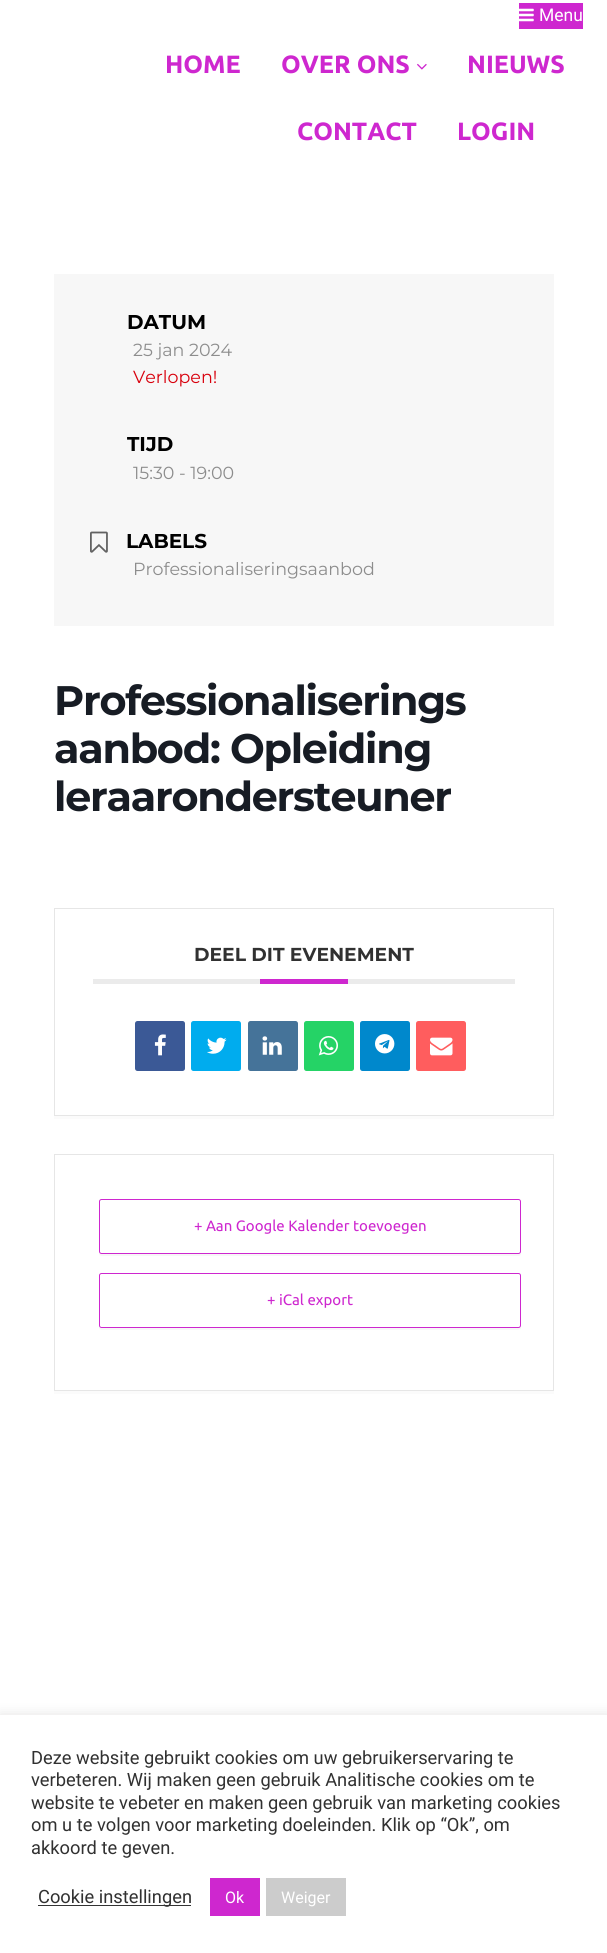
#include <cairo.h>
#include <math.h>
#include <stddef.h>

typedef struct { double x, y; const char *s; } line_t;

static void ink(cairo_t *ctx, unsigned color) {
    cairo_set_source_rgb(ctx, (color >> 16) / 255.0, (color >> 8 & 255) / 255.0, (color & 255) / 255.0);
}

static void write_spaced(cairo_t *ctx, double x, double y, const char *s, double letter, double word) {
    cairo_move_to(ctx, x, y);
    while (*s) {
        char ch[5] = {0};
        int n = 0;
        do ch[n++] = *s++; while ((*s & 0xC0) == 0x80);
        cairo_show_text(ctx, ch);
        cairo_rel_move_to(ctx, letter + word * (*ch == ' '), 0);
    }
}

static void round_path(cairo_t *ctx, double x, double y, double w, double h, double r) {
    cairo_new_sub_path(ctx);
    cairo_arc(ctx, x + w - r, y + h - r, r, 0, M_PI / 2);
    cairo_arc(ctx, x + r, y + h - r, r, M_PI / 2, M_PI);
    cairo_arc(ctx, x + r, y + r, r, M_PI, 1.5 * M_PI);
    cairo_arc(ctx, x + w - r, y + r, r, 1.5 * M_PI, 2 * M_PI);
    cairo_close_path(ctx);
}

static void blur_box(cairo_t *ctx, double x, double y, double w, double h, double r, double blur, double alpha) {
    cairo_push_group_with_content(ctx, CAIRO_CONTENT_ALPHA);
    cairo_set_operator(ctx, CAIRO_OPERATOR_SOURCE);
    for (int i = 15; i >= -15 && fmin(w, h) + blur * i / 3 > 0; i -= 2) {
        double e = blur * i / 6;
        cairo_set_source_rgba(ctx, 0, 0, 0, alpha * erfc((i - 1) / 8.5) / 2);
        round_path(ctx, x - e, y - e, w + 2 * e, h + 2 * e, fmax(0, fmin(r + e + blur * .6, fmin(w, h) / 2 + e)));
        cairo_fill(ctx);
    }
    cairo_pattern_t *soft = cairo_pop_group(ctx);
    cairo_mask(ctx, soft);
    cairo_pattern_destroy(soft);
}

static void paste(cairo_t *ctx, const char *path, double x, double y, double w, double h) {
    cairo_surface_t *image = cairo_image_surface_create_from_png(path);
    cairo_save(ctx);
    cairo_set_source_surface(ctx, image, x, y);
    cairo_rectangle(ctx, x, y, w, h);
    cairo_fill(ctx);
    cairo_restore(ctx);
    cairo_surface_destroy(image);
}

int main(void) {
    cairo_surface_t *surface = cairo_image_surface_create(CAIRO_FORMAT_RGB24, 607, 1953);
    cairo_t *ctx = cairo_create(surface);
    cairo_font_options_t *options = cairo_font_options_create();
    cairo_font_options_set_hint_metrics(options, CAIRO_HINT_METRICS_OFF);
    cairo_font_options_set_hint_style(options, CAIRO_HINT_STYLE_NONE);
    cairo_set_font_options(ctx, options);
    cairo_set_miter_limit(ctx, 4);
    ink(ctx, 0xFFFFFF);
    cairo_paint(ctx);
    ink(ctx, 0xCE27CF);
    cairo_rectangle(ctx, 519, 3, 64, 26);
    cairo_fill(ctx);
    paste(ctx, "media/1.png", 519, 8, 15, 14);
    cairo_select_font_face(ctx, "Roboto", CAIRO_FONT_SLANT_NORMAL, CAIRO_FONT_WEIGHT_NORMAL);
    cairo_set_font_size(ctx, 17.5);
    ink(ctx, 0xFFFFFF);
    cairo_move_to(ctx, 539, 21);
    cairo_show_text(ctx, "Menu");
    cairo_select_font_face(ctx, "Ubuntu", CAIRO_FONT_SLANT_NORMAL, CAIRO_FONT_WEIGHT_BOLD);
    cairo_set_font_size(ctx, 25);
    ink(ctx, 0xCE27CF);
    cairo_move_to(ctx, 165, 73);
    cairo_show_text(ctx, "HOME");
    cairo_move_to(ctx, 281, 73);
    cairo_show_text(ctx, "OVER ONS");
    paste(ctx, "media/2.png", 417, 63, 10, 7);
    {
        static const line_t items[] = {
            {467, 73, "NIEUWS"},
            {297, 140, "CONTACT"},
            {457, 140, "LOGIN"},
        };
        for (size_t i = 0; i < sizeof items / sizeof *items; i++) {
            cairo_move_to(ctx, items[i].x, items[i].y);
            cairo_show_text(ctx, items[i].s);
        }
    }
    ink(ctx, 0xF7F7F7);
    cairo_rectangle(ctx, 54, 274, 500, 352);
    cairo_fill(ctx);
    cairo_select_font_face(ctx, "Montserrat", CAIRO_FONT_SLANT_NORMAL, CAIRO_FONT_WEIGHT_BOLD);
    cairo_set_font_size(ctx, 20);
    ink(ctx, 0x000000);
    cairo_move_to(ctx, 127, 329);
    cairo_show_text(ctx, "DATUM");
    cairo_select_font_face(ctx, "Montserrat", CAIRO_FONT_SLANT_NORMAL, CAIRO_FONT_WEIGHT_NORMAL);
    cairo_set_font_size(ctx, 17.5);
    ink(ctx, 0x8D8D8D);
    cairo_move_to(ctx, 133, 356);
    cairo_show_text(ctx, "25 jan 2024");
    ink(ctx, 0xD8000C);
    cairo_move_to(ctx, 133, 383);
    cairo_show_text(ctx, "Verlopen!");
    cairo_select_font_face(ctx, "Montserrat", CAIRO_FONT_SLANT_NORMAL, CAIRO_FONT_WEIGHT_BOLD);
    cairo_set_font_size(ctx, 20);
    ink(ctx, 0x000000);
    cairo_move_to(ctx, 127, 451);
    cairo_show_text(ctx, "TIJD");
    cairo_select_font_face(ctx, "Montserrat", CAIRO_FONT_SLANT_NORMAL, CAIRO_FONT_WEIGHT_NORMAL);
    cairo_set_font_size(ctx, 17.5);
    ink(ctx, 0x8D8D8D);
    cairo_move_to(ctx, 133, 479);
    cairo_show_text(ctx, "15:30 - 19:00");
    paste(ctx, "media/3.png", 90, 531, 18, 22);
    cairo_select_font_face(ctx, "Montserrat", CAIRO_FONT_SLANT_NORMAL, CAIRO_FONT_WEIGHT_BOLD);
    cairo_set_font_size(ctx, 20);
    ink(ctx, 0x000000);
    cairo_move_to(ctx, 126, 548);
    cairo_show_text(ctx, "LABELS");
    cairo_select_font_face(ctx, "Montserrat", CAIRO_FONT_SLANT_NORMAL, CAIRO_FONT_WEIGHT_NORMAL);
    cairo_set_font_size(ctx, 17.5);
    ink(ctx, 0x8D8D8D);
    cairo_move_to(ctx, 133, 575);
    cairo_show_text(ctx, "Professionaliseringsaanbod");
    cairo_select_font_face(ctx, "Montserrat", CAIRO_FONT_SLANT_NORMAL, CAIRO_FONT_WEIGHT_BOLD);
    cairo_set_font_size(ctx, 41.25);
    ink(ctx, 0x171C24);
    {
        static const line_t items[] = {
            {54, 715, "Professionaliserings"},
            {54, 763, "aanbod: Opleiding"},
            {54, 811, "leraarondersteuner"},
        };
        for (size_t i = 0; i < sizeof items / sizeof *items; i++) {
            write_spaced(ctx, items[i].x, items[i].y, items[i].s, -1.25, 0);
        }
    }
    ink(ctx, 0xFBFBFB);
    cairo_new_path(ctx);
    cairo_move_to(ctx, 54, 1116);
    cairo_line_to(ctx, 54, 1119);
    cairo_line_to(ctx, 554, 1119);
    cairo_line_to(ctx, 554, 910);
    cairo_line_to(ctx, 554, 1116);
    cairo_close_path(ctx);
    cairo_fill(ctx);
    cairo_rectangle(ctx, 54.5, 908.5, 499, 207);
    ink(ctx, 0xE6E6E6);
    cairo_set_line_width(ctx, 1);
    cairo_stroke(ctx);
    ink(ctx, 0xEBEBEB);
    cairo_rectangle(ctx, 93, 979, 422, 5);
    cairo_fill(ctx);
    cairo_set_font_size(ctx, 18.75);
    ink(ctx, 0x313131);
    cairo_move_to(ctx, 194, 961);
    cairo_show_text(ctx, "DEEL DIT EVENEMENT");
    ink(ctx, 0xCE27CF);
    cairo_rectangle(ctx, 260, 979, 88, 5);
    cairo_fill(ctx);
    ink(ctx, 0x3B5996);
    round_path(ctx, 135, 1021, 50, 50, 2.5);
    cairo_fill(ctx);
    paste(ctx, "media/4.png", 154, 1034, 12, 22);
    ink(ctx, 0x00ACEE);
    round_path(ctx, 191, 1021, 50, 50, 2.5);
    cairo_fill(ctx);
    paste(ctx, "media/5.png", 207, 1037, 20, 17);
    ink(ctx, 0x457399);
    round_path(ctx, 248, 1021, 50, 50, 2.5);
    cairo_fill(ctx);
    paste(ctx, "media/6.png", 262, 1036, 20, 19);
    ink(ctx, 0x25D366);
    round_path(ctx, 304, 1021, 50, 50, 2.5);
    cairo_fill(ctx);
    paste(ctx, "media/7.png", 318, 1036, 20, 20);
    ink(ctx, 0x0088CC);
    round_path(ctx, 360, 1021, 50, 50, 2.5);
    cairo_fill(ctx);
    paste(ctx, "media/8.png", 375, 1034, 20, 20);
    ink(ctx, 0xFF5D5E);
    round_path(ctx, 416, 1021, 50, 50, 2.5);
    cairo_fill(ctx);
    paste(ctx, "media/9.png", 430, 1037, 23, 19);
    ink(ctx, 0xFBFBFB);
    cairo_new_path(ctx);
    cairo_move_to(ctx, 54, 1391);
    cairo_line_to(ctx, 54, 1394);
    cairo_line_to(ctx, 554, 1394);
    cairo_line_to(ctx, 554, 1156);
    cairo_line_to(ctx, 554, 1391);
    cairo_close_path(ctx);
    cairo_fill(ctx);
    cairo_rectangle(ctx, 54.5, 1154.5, 499, 236);
    ink(ctx, 0xE6E6E6);
    cairo_stroke(ctx);
    ink(ctx, 0xF7F7F7);
    cairo_new_path(ctx);
    cairo_move_to(ctx, 99, 1252);
    cairo_curve_to(ctx, 99, 1254, 99, 1256, 102, 1256);
    cairo_line_to(ctx, 518, 1256);
    cairo_curve_to(ctx, 521, 1256, 521, 1254, 521, 1252);
    cairo_curve_to(ctx, 521, 1253, 520, 1254, 519, 1254);
    cairo_line_to(ctx, 101, 1254);
    cairo_curve_to(ctx, 100, 1254, 99, 1253, 99, 1252);
    cairo_close_path(ctx);
    cairo_fill(ctx);
    round_path(ctx, 99.5, 1199.5, 421, 54, 2);
    ink(ctx, 0xCE27CF);
    cairo_stroke(ctx);
    cairo_select_font_face(ctx, "Ubuntu", CAIRO_FONT_SLANT_NORMAL, CAIRO_FONT_WEIGHT_NORMAL);
    cairo_set_font_size(ctx, 15);
    cairo_move_to(ctx, 194, 1231);
    cairo_show_text(ctx, "+ Aan Google Kalender toevoegen");
    ink(ctx, 0xF7F7F7);
    cairo_new_path(ctx);
    cairo_move_to(ctx, 99, 1326);
    cairo_curve_to(ctx, 99, 1328, 99, 1330, 102, 1330);
    cairo_line_to(ctx, 518, 1330);
    cairo_line_to(ctx, 521, 1329);
    cairo_line_to(ctx, 521, 1326);
    cairo_curve_to(ctx, 521, 1327, 520, 1328, 519, 1328);
    cairo_line_to(ctx, 101, 1328);
    cairo_curve_to(ctx, 100, 1328, 99, 1327, 99, 1326);
    cairo_close_path(ctx);
    cairo_fill(ctx);
    round_path(ctx, 99.5, 1273.5, 421, 54, 2);
    ink(ctx, 0xCE27CF);
    cairo_stroke(ctx);
    cairo_move_to(ctx, 267, 1305);
    cairo_show_text(ctx, "+ iCal export");
    ink(ctx, 0xACABAB);
    blur_box(ctx, 0, 1714, 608, 239, 0, 6, 0.3);
    ink(ctx, 0xFFFFFF);
    cairo_rectangle(ctx, 0, 1715, 607, 238);
    cairo_fill(ctx);
    cairo_select_font_face(ctx, "Roboto", CAIRO_FONT_SLANT_NORMAL, CAIRO_FONT_WEIGHT_NORMAL);
    cairo_set_font_size(ctx, 18.3);
    ink(ctx, 0x313131);
    {
        static const line_t items[] = {
            {31, 1764, "Deze website gebruikt cookies om uw gebruikerservaring te"},
            {31, 1786, "verbeteren. Wij maken geen gebruik Analitische cookies om te"},
            {31, 1809, "website te vebeter en maken geen gebruik van marketing cookies"},
            {31, 1831, "om u te volgen voor marketing doeleinden. Klik op “Ok”, om"},
            {31, 1854, "akkoord te geven."},
        };
        for (size_t i = 0; i < sizeof items / sizeof *items; i++) {
            cairo_move_to(ctx, items[i].x, items[i].y);
            cairo_show_text(ctx, items[i].s);
        }
    }
    ink(ctx, 0x333333);
    cairo_rectangle(ctx, 38, 1905, 153, 1);
    cairo_fill(ctx);
    ink(ctx, 0x313131);
    cairo_move_to(ctx, 38, 1903);
    cairo_show_text(ctx, "Cookie instellingen");
    ink(ctx, 0xCE27CF);
    cairo_rectangle(ctx, 210, 1878, 50, 38);
    cairo_fill(ctx);
    cairo_set_font_size(ctx, 16);
    ink(ctx, 0xFFFFFF);
    cairo_move_to(ctx, 225, 1903);
    cairo_show_text(ctx, "Ok");
    ink(ctx, 0xCCCCCC);
    cairo_rectangle(ctx, 266, 1878, 80, 38);
    cairo_fill(ctx);
    ink(ctx, 0xFFFFFF);
    cairo_move_to(ctx, 281, 1903);
    cairo_show_text(ctx, "Weiger");
    cairo_surface_write_to_png(surface, "image.png");
    cairo_font_options_destroy(options);
    cairo_destroy(ctx);
    cairo_surface_destroy(surface);
    return 0;
}
